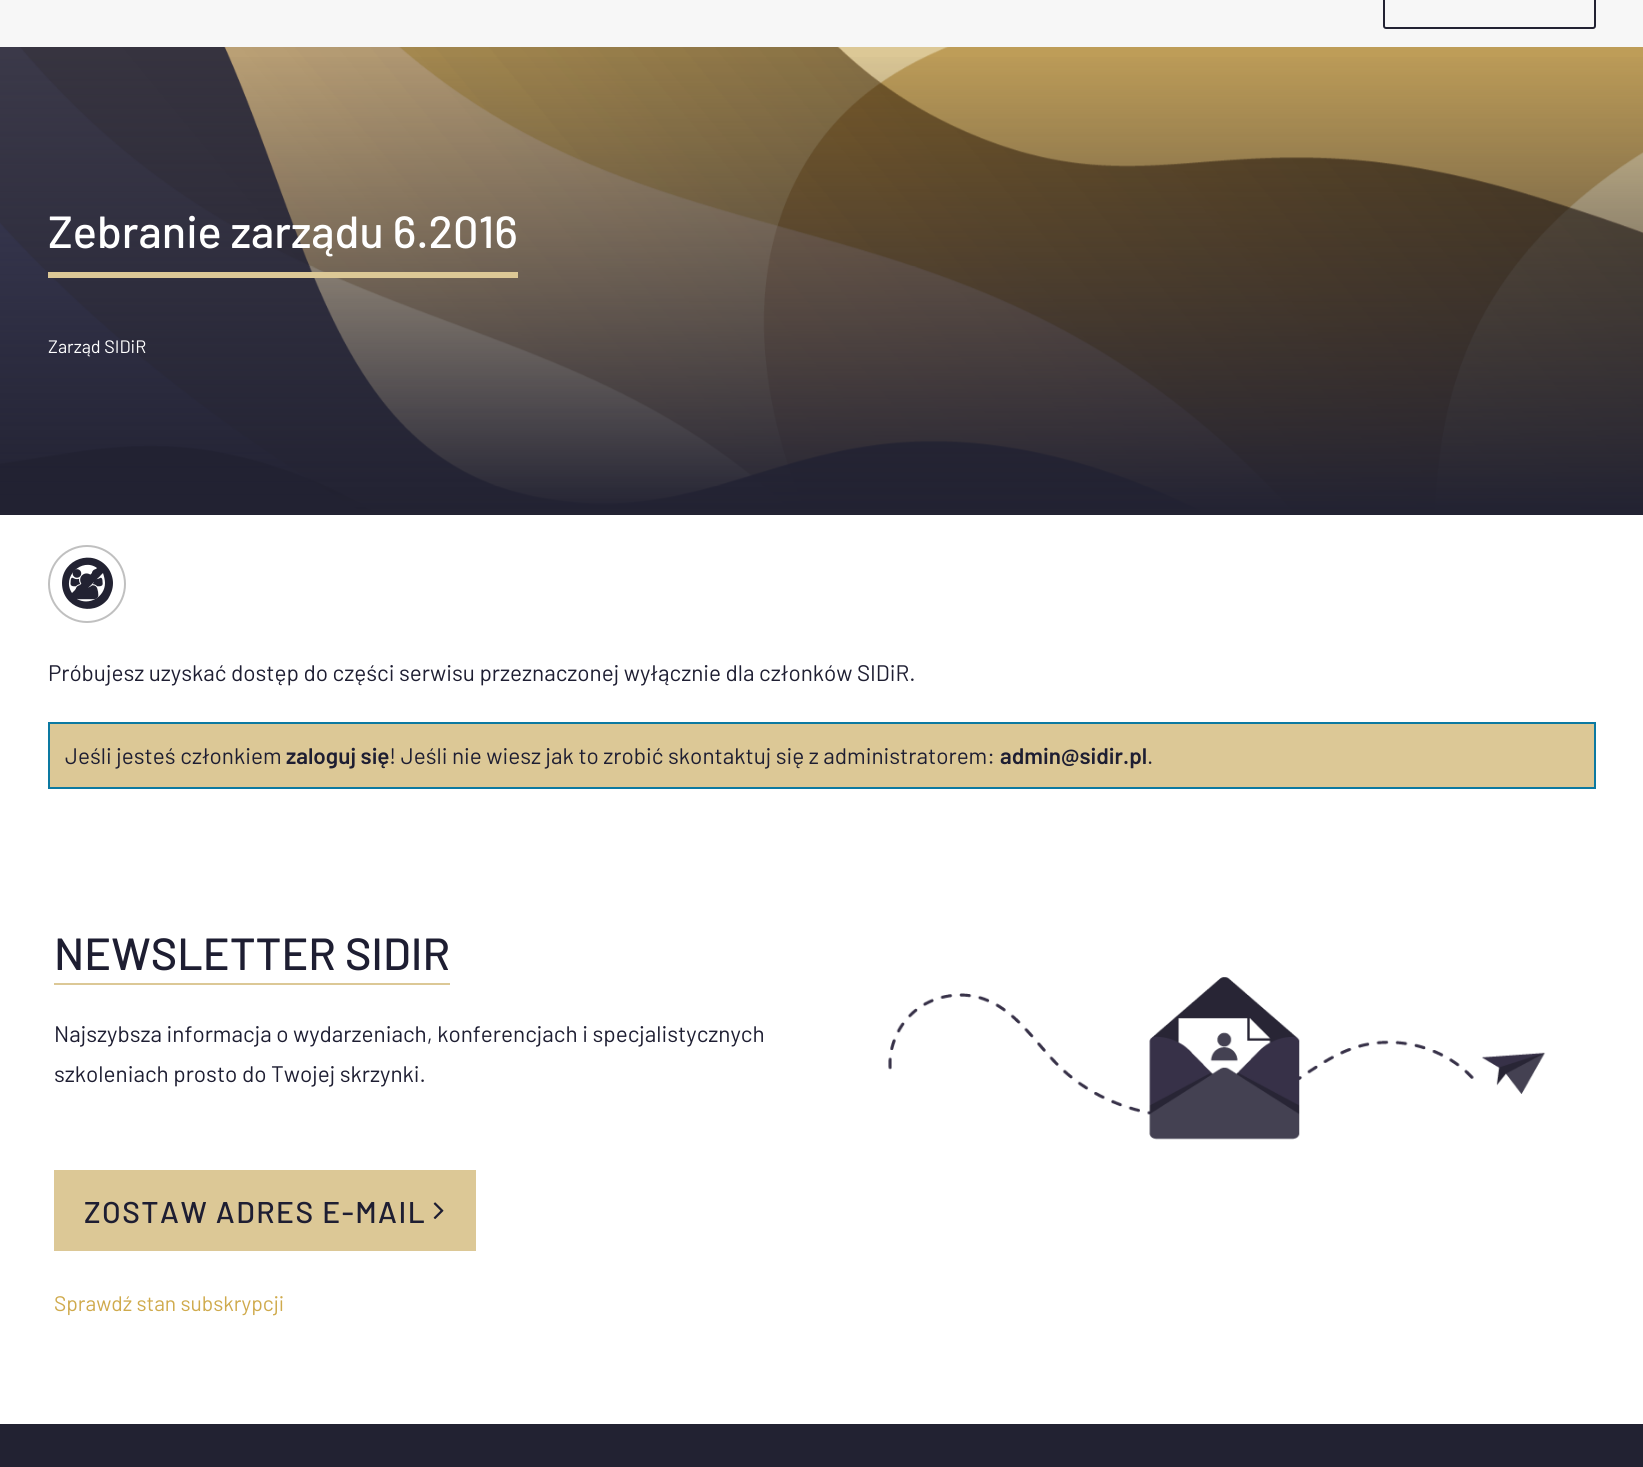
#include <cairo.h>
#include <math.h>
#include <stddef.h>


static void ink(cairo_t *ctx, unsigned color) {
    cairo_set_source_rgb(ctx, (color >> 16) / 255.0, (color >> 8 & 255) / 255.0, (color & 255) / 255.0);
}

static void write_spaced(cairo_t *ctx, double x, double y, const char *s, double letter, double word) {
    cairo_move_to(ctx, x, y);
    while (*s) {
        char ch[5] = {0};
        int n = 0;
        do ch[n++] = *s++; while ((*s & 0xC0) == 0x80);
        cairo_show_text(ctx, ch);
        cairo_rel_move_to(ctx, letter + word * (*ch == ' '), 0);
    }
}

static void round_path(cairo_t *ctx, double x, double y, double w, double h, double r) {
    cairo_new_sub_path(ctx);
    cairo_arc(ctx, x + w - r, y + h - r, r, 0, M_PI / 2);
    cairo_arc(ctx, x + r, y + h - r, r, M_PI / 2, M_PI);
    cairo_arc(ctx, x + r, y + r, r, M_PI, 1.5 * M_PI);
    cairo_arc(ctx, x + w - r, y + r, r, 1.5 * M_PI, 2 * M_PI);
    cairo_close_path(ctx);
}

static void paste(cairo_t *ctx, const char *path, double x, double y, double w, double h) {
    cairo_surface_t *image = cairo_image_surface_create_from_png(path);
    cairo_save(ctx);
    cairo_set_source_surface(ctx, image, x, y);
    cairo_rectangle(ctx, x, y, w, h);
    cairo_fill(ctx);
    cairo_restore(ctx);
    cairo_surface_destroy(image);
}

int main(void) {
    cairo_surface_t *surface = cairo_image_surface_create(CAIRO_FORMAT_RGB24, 1643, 1467);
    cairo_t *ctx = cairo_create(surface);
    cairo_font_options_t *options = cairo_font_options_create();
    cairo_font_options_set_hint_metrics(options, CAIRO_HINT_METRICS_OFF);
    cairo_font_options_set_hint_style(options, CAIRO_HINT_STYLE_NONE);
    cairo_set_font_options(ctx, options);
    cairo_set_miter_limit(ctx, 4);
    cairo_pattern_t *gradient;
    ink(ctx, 0xFFFFFF);
    cairo_paint(ctx);
    ink(ctx, 0xF7F7F7);
    cairo_rectangle(ctx, 0, 0, 1643, 47);
    cairo_fill(ctx);
    round_path(ctx, 1384, -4, 211, 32, 2);
    ink(ctx, 0x222232);
    cairo_stroke(ctx);
    paste(ctx, "media/1.png", 0, 47, 1643, 465);
    gradient = cairo_pattern_create_linear(822, 515, 822, 47);
    cairo_pattern_add_color_stop_rgba(gradient, 0, 0.133, 0.133, 0.196, 1);
    cairo_pattern_add_color_stop_rgba(gradient, 1, 0.133, 0.133, 0.196, 0);
    cairo_set_source(ctx, gradient);
    cairo_pattern_destroy(gradient);
    cairo_rectangle(ctx, 0, 57, 1643, 458);
    cairo_fill(ctx);
    cairo_select_font_face(ctx, "Barlow Medium", CAIRO_FONT_SLANT_NORMAL, CAIRO_FONT_WEIGHT_NORMAL);
    cairo_set_font_size(ctx, 45);
    ink(ctx, 0xFFFFFF);
    cairo_move_to(ctx, 48, 248);
    cairo_show_text(ctx, "Zebranie zarządu 6.2016");
    ink(ctx, 0xDCC896);
    cairo_rectangle(ctx, 48, 272, 470, 6);
    cairo_fill(ctx);
    cairo_select_font_face(ctx, "Barlow", CAIRO_FONT_SLANT_NORMAL, CAIRO_FONT_WEIGHT_NORMAL);
    cairo_set_font_size(ctx, 18);
    ink(ctx, 0xFFFFFF);
    cairo_move_to(ctx, 48, 353);
    cairo_show_text(ctx, "Zarząd SIDiR");
    cairo_new_path(ctx);
    cairo_arc(ctx, 87, 584, 38, 0, 2 * M_PI);
    ink(ctx, 0xC0C0C0);
    cairo_stroke(ctx);
    paste(ctx, "media/2.png", 70, 569, 33, 31);
    ink(ctx, 0x222232);
    cairo_new_path(ctx);
    cairo_move_to(ctx, 105, 583);
    cairo_curve_to(ctx, 105, 580, 104, 576, 103, 573);
    cairo_line_to(ctx, 77, 599);
    cairo_curve_to(ctx, 89, 606, 105, 597, 105, 583);
    cairo_close_path(ctx);
    cairo_move_to(ctx, 72, 593);
    cairo_line_to(ctx, 97, 568);
    cairo_curve_to(ctx, 82, 557, 61, 577, 72, 593);
    cairo_close_path(ctx);
    cairo_move_to(ctx, 113, 583);
    cairo_curve_to(ctx, 113, 589, 111, 594, 108, 599);
    cairo_curve_to(ctx, 93, 618, 62, 608, 62, 583);
    cairo_curve_to(ctx, 62, 559, 93, 548, 108, 568);
    cairo_curve_to(ctx, 111, 572, 113, 578, 113, 583);
    cairo_close_path(ctx);
    cairo_fill(ctx);
    cairo_set_font_size(ctx, 22.5);
    ink(ctx, 0x1E1E32);
    cairo_move_to(ctx, 48, 681);
    cairo_show_text(ctx, "Próbujesz uzyskać dostęp do części serwisu przeznaczonej wyłącznie dla członków SIDiR.");
    ink(ctx, 0xDCC896);
    cairo_rectangle(ctx, 49, 723, 1546, 65);
    cairo_fill_preserve(ctx);
    ink(ctx, 0x0C79A1);
    cairo_stroke(ctx);
    ink(ctx, 0x1E1E32);
    cairo_move_to(ctx, 65, 764);
    cairo_show_text(ctx, "Jeśli jesteś członkiem");
    cairo_select_font_face(ctx, "Barlow SemiBold", CAIRO_FONT_SLANT_NORMAL, CAIRO_FONT_WEIGHT_NORMAL);
    cairo_move_to(ctx, 286, 764);
    cairo_show_text(ctx, "zaloguj się");
    cairo_select_font_face(ctx, "Barlow", CAIRO_FONT_SLANT_NORMAL, CAIRO_FONT_WEIGHT_NORMAL);
    cairo_move_to(ctx, 389, 764);
    cairo_show_text(ctx, "! Jeśli nie wiesz jak to zrobić skontaktuj się z administratorem:");
    cairo_select_font_face(ctx, "Barlow SemiBold", CAIRO_FONT_SLANT_NORMAL, CAIRO_FONT_WEIGHT_NORMAL);
    cairo_move_to(ctx, 1000, 764);
    cairo_show_text(ctx, "admin@sidir.pl");
    cairo_select_font_face(ctx, "Barlow", CAIRO_FONT_SLANT_NORMAL, CAIRO_FONT_WEIGHT_NORMAL);
    cairo_move_to(ctx, 1147, 764);
    cairo_show_text(ctx, ".");
    ink(ctx, 0xDCC896);
    cairo_rectangle(ctx, 54, 983, 396, 2);
    cairo_fill(ctx);
    cairo_select_font_face(ctx, "Barlow Medium", CAIRO_FONT_SLANT_NORMAL, CAIRO_FONT_WEIGHT_NORMAL);
    cairo_set_font_size(ctx, 45);
    ink(ctx, 0x1E1E32);
    cairo_move_to(ctx, 54, 970);
    cairo_show_text(ctx, "NEWSLETTER SIDIR");
    cairo_select_font_face(ctx, "Barlow", CAIRO_FONT_SLANT_NORMAL, CAIRO_FONT_WEIGHT_NORMAL);
    cairo_set_font_size(ctx, 22.5);
    cairo_move_to(ctx, 54, 1042);
    cairo_show_text(ctx, "Najszybsza informacja o wydarzeniach, konferencjach i specjalistycznych");
    cairo_move_to(ctx, 54, 1082);
    cairo_show_text(ctx, "szkoleniach prosto do Twojej skrzynki.");
    ink(ctx, 0xDCC896);
    cairo_rectangle(ctx, 54, 1170, 422, 81);
    cairo_fill(ctx);
    cairo_select_font_face(ctx, "Barlow Medium", CAIRO_FONT_SLANT_NORMAL, CAIRO_FONT_WEIGHT_NORMAL);
    cairo_set_font_size(ctx, 30);
    ink(ctx, 0x1E1E32);
    write_spaced(ctx, 84, 1223, "ZOSTAW ADRES E-MAIL", 1.5, 0);
    paste(ctx, "media/3.png", 433, 1202, 11, 17);
    cairo_select_font_face(ctx, "Barlow", CAIRO_FONT_SLANT_NORMAL, CAIRO_FONT_WEIGHT_NORMAL);
    cairo_set_font_size(ctx, 21);
    ink(ctx, 0xCFAA4C);
    cairo_move_to(ctx, 54, 1311);
    cairo_show_text(ctx, "Sprawdź stan subskrypcji");
    paste(ctx, "media/4.png", 888, 977, 658, 163);
    ink(ctx, 0x222232);
    cairo_rectangle(ctx, 0, 1424, 1643, 43);
    cairo_fill(ctx);
    cairo_surface_write_to_png(surface, "image.png");
    cairo_font_options_destroy(options);
    cairo_destroy(ctx);
    cairo_surface_destroy(surface);
    return 0;
}
